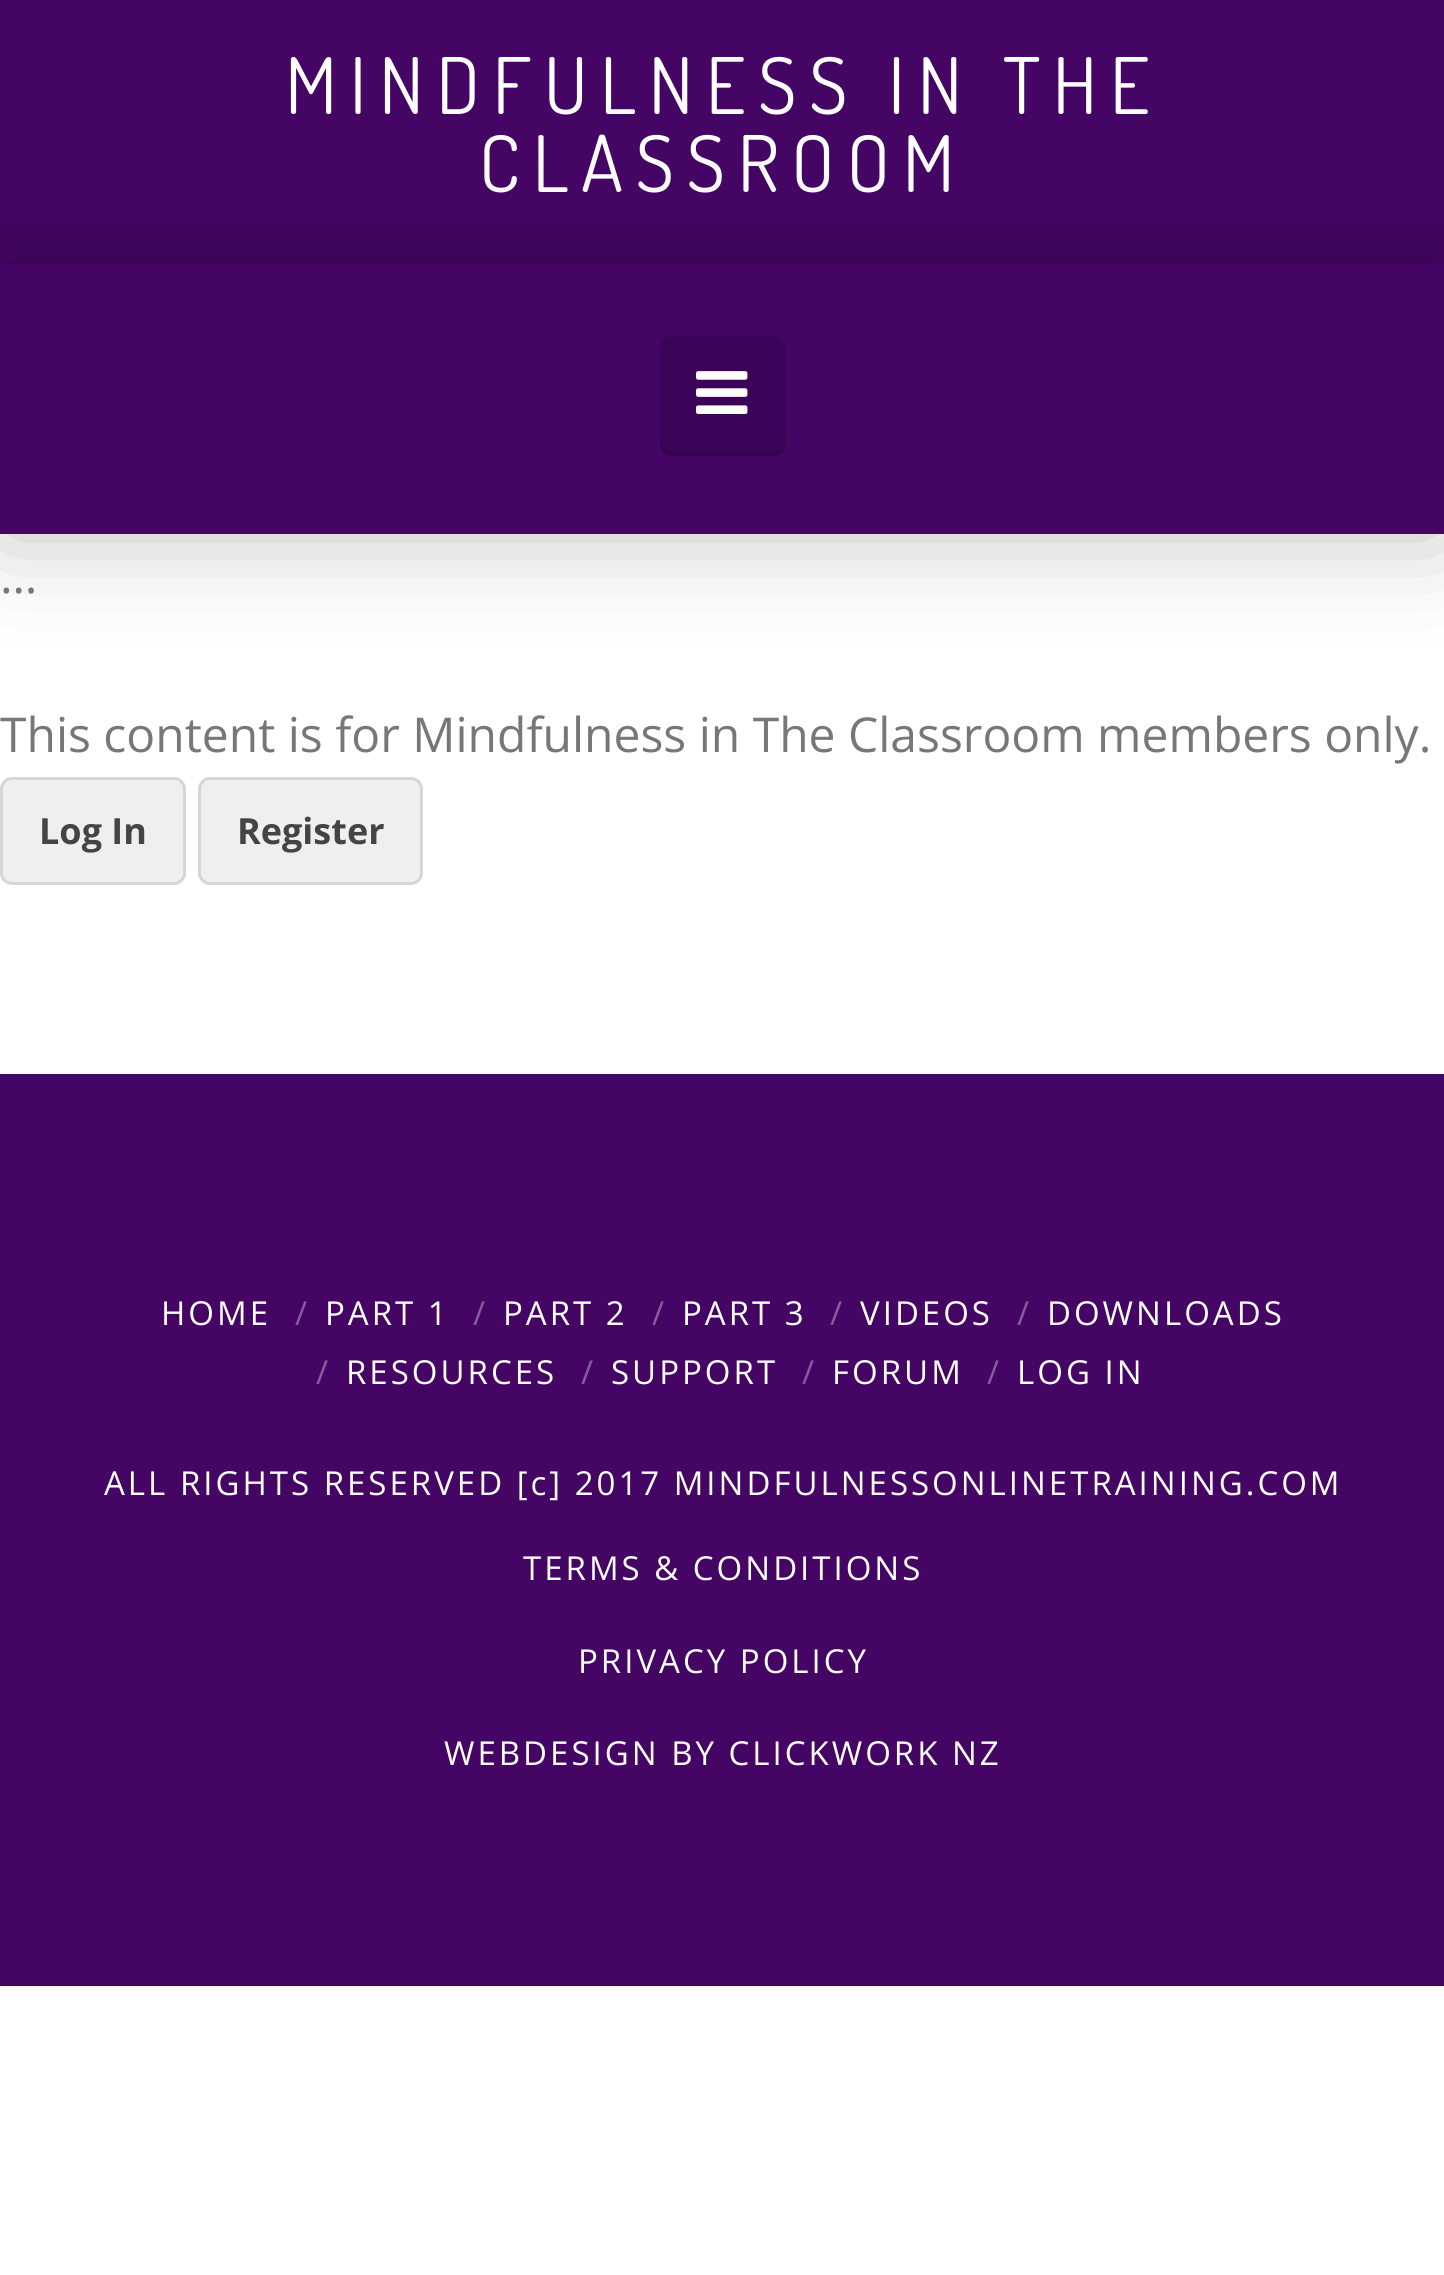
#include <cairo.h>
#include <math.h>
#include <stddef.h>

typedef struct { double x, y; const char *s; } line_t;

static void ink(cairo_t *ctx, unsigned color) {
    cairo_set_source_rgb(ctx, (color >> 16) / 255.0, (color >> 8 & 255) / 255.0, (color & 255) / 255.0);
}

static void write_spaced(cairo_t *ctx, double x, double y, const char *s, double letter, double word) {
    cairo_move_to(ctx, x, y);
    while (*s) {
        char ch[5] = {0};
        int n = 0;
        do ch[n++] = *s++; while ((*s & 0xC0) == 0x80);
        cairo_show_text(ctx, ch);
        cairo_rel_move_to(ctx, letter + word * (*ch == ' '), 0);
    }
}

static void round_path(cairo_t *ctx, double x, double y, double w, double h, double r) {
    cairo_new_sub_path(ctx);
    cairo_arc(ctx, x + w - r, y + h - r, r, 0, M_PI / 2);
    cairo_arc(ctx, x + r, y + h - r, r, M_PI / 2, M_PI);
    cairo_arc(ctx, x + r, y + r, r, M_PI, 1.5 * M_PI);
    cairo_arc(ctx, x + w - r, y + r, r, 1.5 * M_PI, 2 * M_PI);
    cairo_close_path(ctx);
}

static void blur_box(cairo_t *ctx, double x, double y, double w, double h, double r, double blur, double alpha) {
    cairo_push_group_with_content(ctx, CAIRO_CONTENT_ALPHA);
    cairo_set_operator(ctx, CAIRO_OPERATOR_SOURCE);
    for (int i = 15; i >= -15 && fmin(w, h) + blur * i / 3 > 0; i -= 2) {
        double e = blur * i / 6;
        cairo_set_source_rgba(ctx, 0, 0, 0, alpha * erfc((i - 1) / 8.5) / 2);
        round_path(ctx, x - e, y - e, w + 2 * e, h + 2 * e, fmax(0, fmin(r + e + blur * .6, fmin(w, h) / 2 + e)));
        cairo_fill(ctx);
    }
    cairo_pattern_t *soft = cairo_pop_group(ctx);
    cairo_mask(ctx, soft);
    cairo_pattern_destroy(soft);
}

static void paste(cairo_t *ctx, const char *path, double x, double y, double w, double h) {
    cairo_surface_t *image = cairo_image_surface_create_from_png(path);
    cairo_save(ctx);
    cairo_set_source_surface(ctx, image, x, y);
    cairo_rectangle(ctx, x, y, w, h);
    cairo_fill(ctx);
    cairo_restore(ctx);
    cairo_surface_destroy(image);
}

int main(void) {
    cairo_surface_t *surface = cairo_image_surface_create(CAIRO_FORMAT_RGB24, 1444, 2275);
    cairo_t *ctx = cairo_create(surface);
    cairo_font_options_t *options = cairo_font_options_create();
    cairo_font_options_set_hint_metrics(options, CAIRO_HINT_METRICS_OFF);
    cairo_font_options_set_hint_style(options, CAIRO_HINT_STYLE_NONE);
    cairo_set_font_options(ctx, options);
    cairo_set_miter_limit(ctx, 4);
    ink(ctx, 0xFFFFFF);
    cairo_paint(ctx);
    ink(ctx, 0x450565);
    cairo_rectangle(ctx, 0, 0, 1444, 264);
    cairo_fill(ctx);
    cairo_select_font_face(ctx, "Dosis", CAIRO_FONT_SLANT_NORMAL, CAIRO_FONT_WEIGHT_NORMAL);
    cairo_set_font_size(ctx, 78);
    ink(ctx, 0xFFFFFF);
    write_spaced(ctx, 285, 114, "MINDFULNESS IN THE", 12.5, 0);
    write_spaced(ctx, 479, 192, "CLASSROOM", 12.5, 0);
    ink(ctx, 0x000000);
    blur_box(ctx, 0, 264, 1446, 270, 0, 52.5, 0.25);
    ink(ctx, 0x450565);
    cairo_rectangle(ctx, 0, 264, 1444, 270);
    cairo_fill(ctx);
    ink(ctx, 0x34044C);
    cairo_new_path(ctx);
    cairo_move_to(ctx, 660, 438);
    cairo_line_to(ctx, 660, 444);
    cairo_curve_to(ctx, 660, 451, 665, 456, 672, 456);
    cairo_line_to(ctx, 774, 456);
    cairo_curve_to(ctx, 781, 456, 786, 451, 786, 444);
    cairo_line_to(ctx, 786, 438);
    cairo_curve_to(ctx, 786, 445, 781, 450, 774, 450);
    cairo_line_to(ctx, 672, 450);
    cairo_curve_to(ctx, 665, 450, 660, 445, 660, 438);
    cairo_close_path(ctx);
    cairo_fill(ctx);
    ink(ctx, 0x3C0458);
    round_path(ctx, 660, 336, 126, 114, 12);
    cairo_fill(ctx);
    paste(ctx, "media/1.png", 696, 371, 52, 43);
    cairo_select_font_face(ctx, "Open Sans", CAIRO_FONT_SLANT_NORMAL, CAIRO_FONT_WEIGHT_NORMAL);
    cairo_set_font_size(ctx, 48);
    ink(ctx, 0x777777);
    cairo_move_to(ctx, 0, 593);
    cairo_show_text(ctx, "…");
    cairo_move_to(ctx, 0, 752);
    cairo_show_text(ctx, "This content is for Mindfulness in The Classroom members only.");
    ink(ctx, 0xEFEFEF);
    round_path(ctx, 1.5, 778.5, 183, 105, 10.5);
    cairo_fill_preserve(ctx);
    ink(ctx, 0xD6D6D6);
    cairo_set_line_width(ctx, 3);
    cairo_stroke(ctx);
    cairo_select_font_face(ctx, "Open Sans", CAIRO_FONT_SLANT_NORMAL, CAIRO_FONT_WEIGHT_BOLD);
    cairo_set_font_size(ctx, 36);
    ink(ctx, 0x444444);
    cairo_move_to(ctx, 39, 844);
    cairo_show_text(ctx, "Log In");
    ink(ctx, 0xEFEFEF);
    round_path(ctx, 199.5, 778.5, 222, 105, 10.5);
    cairo_fill_preserve(ctx);
    ink(ctx, 0xD6D6D6);
    cairo_stroke(ctx);
    ink(ctx, 0x444444);
    cairo_move_to(ctx, 237, 844);
    cairo_show_text(ctx, "Register");
    ink(ctx, 0x450565);
    cairo_rectangle(ctx, 0, 1074, 1444, 912);
    cairo_fill(ctx);
    cairo_select_font_face(ctx, "Open Sans", CAIRO_FONT_SLANT_NORMAL, CAIRO_FONT_WEIGHT_NORMAL);
    cairo_set_font_size(ctx, 33);
    ink(ctx, 0xFFFFFF);
    write_spaced(ctx, 161, 1325, "HOME", 3, 0);
    ink(ctx, 0x865D9B);
    cairo_move_to(ctx, 295, 1325);
    cairo_show_text(ctx, "/");
    ink(ctx, 0xFFFFFF);
    write_spaced(ctx, 325, 1325, "PART 1", 3, 0);
    ink(ctx, 0x865D9B);
    cairo_move_to(ctx, 473, 1325);
    cairo_show_text(ctx, "/");
    ink(ctx, 0xFFFFFF);
    write_spaced(ctx, 503, 1325, "PART 2", 3, 0);
    ink(ctx, 0x865D9B);
    cairo_move_to(ctx, 652, 1325);
    cairo_show_text(ctx, "/");
    ink(ctx, 0xFFFFFF);
    write_spaced(ctx, 682, 1325, "PART 3", 3, 0);
    ink(ctx, 0x865D9B);
    cairo_move_to(ctx, 830, 1325);
    cairo_show_text(ctx, "/");
    ink(ctx, 0xFFFFFF);
    write_spaced(ctx, 860, 1325, "VIDEOS", 3, 0);
    ink(ctx, 0x865D9B);
    cairo_move_to(ctx, 1017, 1325);
    cairo_show_text(ctx, "/");
    ink(ctx, 0xFFFFFF);
    write_spaced(ctx, 1047, 1325, "DOWNLOADS", 3, 0);
    ink(ctx, 0x865D9B);
    cairo_move_to(ctx, 316, 1384);
    cairo_show_text(ctx, "/");
    ink(ctx, 0xFFFFFF);
    write_spaced(ctx, 346, 1384, "RESOURCES", 3, 0);
    ink(ctx, 0x865D9B);
    cairo_move_to(ctx, 581, 1384);
    cairo_show_text(ctx, "/");
    ink(ctx, 0xFFFFFF);
    write_spaced(ctx, 611, 1384, "SUPPORT", 3, 0);
    ink(ctx, 0x865D9B);
    cairo_move_to(ctx, 802, 1384);
    cairo_show_text(ctx, "/");
    ink(ctx, 0xFFFFFF);
    write_spaced(ctx, 832, 1384, "FORUM", 3, 0);
    ink(ctx, 0x865D9B);
    cairo_move_to(ctx, 987, 1384);
    cairo_show_text(ctx, "/");
    ink(ctx, 0xFFFFFF);
    {
        static const line_t items[] = {
            {1017, 1384, "LOG IN"},
            {104, 1495, "ALL RIGHTS RESERVED [c] 2017 MINDFULNESSONLINETRAINING.COM"},
            {523, 1580, "TERMS & CONDITIONS"},
            {578, 1673, "PRIVACY POLICY"},
            {444, 1765, "WEBDESIGN BY CLICKWORK NZ"},
        };
        for (size_t i = 0; i < sizeof items / sizeof *items; i++) {
            write_spaced(ctx, items[i].x, items[i].y, items[i].s, 3, 0);
        }
    }
    cairo_surface_write_to_png(surface, "image.png");
    cairo_font_options_destroy(options);
    cairo_destroy(ctx);
    cairo_surface_destroy(surface);
    return 0;
}
